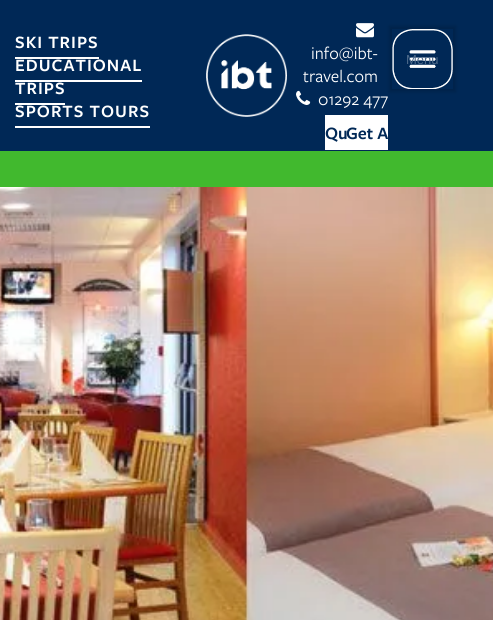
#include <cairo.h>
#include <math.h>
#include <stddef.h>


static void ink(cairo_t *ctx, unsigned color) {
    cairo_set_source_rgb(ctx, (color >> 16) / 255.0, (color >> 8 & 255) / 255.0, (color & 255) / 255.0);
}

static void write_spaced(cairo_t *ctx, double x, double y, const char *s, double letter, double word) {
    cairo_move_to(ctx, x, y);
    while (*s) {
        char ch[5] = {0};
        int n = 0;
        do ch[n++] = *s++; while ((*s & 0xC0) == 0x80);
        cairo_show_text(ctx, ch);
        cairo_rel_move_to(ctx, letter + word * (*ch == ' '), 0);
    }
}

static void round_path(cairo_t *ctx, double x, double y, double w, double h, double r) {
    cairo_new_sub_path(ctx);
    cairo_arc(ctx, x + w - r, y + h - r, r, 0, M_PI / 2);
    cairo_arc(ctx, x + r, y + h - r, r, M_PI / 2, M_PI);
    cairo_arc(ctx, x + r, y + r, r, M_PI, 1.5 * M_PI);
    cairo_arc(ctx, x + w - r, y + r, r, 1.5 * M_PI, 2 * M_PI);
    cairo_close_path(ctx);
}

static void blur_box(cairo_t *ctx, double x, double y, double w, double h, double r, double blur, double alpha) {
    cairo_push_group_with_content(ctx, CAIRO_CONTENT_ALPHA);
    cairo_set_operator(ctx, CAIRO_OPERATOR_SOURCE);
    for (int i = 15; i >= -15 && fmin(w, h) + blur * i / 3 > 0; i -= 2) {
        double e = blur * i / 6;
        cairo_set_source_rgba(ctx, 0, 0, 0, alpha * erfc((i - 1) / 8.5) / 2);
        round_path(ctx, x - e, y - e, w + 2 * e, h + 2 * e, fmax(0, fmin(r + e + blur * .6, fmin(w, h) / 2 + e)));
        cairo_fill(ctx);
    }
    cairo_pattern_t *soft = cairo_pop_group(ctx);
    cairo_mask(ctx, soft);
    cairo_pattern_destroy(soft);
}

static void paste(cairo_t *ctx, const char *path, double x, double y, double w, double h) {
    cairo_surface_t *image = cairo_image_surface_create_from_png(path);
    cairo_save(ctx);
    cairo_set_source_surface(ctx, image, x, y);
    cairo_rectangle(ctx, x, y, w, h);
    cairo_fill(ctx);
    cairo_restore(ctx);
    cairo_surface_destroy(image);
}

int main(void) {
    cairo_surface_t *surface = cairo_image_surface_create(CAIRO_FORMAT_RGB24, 493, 620);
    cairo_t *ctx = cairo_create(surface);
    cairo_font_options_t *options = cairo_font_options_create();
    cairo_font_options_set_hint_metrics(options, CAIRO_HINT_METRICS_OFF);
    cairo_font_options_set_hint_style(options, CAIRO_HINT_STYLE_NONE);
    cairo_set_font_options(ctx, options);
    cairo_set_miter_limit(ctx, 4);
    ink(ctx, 0xFFFFFF);
    cairo_paint(ctx);
    ink(ctx, 0x002856);
    cairo_rectangle(ctx, 0, 0, 493, 151);
    cairo_fill(ctx);
    cairo_select_font_face(ctx, "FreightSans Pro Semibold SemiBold", CAIRO_FONT_SLANT_NORMAL, CAIRO_FONT_WEIGHT_NORMAL);
    cairo_set_font_size(ctx, 18);
    ink(ctx, 0xFFFFFF);
    write_spaced(ctx, 15, 48, "SKI TRIPS", 1, 0);
    cairo_rectangle(ctx, 15, 57, 84, 2);
    cairo_fill(ctx);
    write_spaced(ctx, 15, 71, "EDUCATIONAL", 1, 0);
    write_spaced(ctx, 15, 94, "TRIPS", 1, 0);
    cairo_rectangle(ctx, 15, 80, 127, 2);
    cairo_fill(ctx);
    cairo_rectangle(ctx, 15, 103, 50, 2);
    cairo_fill(ctx);
    write_spaced(ctx, 15, 117, "SPORTS TOURS", 1, 0);
    cairo_rectangle(ctx, 15, 126, 135, 2);
    cairo_fill(ctx);
    paste(ctx, "media/1.png", 206, 34, 81, 83);
    paste(ctx, "media/2.png", 356, 23, 18, 15);
    cairo_select_font_face(ctx, "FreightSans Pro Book", CAIRO_FONT_SLANT_NORMAL, CAIRO_FONT_WEIGHT_NORMAL);
    cairo_move_to(ctx, 311, 59);
    cairo_show_text(ctx, "info@ibt-");
    cairo_move_to(ctx, 303, 82);
    cairo_show_text(ctx, "travel.com");
    paste(ctx, "media/3.png", 296, 90, 15, 15);
    cairo_move_to(ctx, 318, 105);
    cairo_show_text(ctx, "01292 477");
    cairo_rectangle(ctx, 381, 115, 7, 35);
    cairo_fill(ctx);
    cairo_new_path(ctx);
    cairo_move_to(ctx, 325, 115);
    cairo_line_to(ctx, 381, 115);
    cairo_curve_to(ctx, 385, 115, 388, 118, 388, 122);
    cairo_line_to(ctx, 388, 143);
    cairo_curve_to(ctx, 388, 147, 385, 150, 381, 150);
    cairo_line_to(ctx, 325, 150);
    cairo_close_path(ctx);
    cairo_fill(ctx);
    cairo_select_font_face(ctx, "FreightSans Pro Semibold SemiBold", CAIRO_FONT_SLANT_NORMAL, CAIRO_FONT_WEIGHT_NORMAL);
    ink(ctx, 0x002856);
    cairo_move_to(ctx, 346, 139);
    cairo_show_text(ctx, "Get A");
    cairo_move_to(ctx, 325, 139);
    cairo_show_text(ctx, "Qu");
    cairo_save(ctx);
    cairo_set_fill_rule(ctx, CAIRO_FILL_RULE_EVEN_ODD);
    cairo_new_path(ctx);
    cairo_move_to(ctx, 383, 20);
    cairo_line_to(ctx, 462, 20);
    cairo_line_to(ctx, 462, 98);
    cairo_line_to(ctx, 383, 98);
    cairo_close_path(ctx);
    cairo_move_to(ctx, 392, 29);
    cairo_line_to(ctx, 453, 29);
    cairo_line_to(ctx, 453, 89);
    cairo_line_to(ctx, 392, 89);
    cairo_close_path(ctx);
    cairo_clip(ctx);
    ink(ctx, 0x000000);
    blur_box(ctx, 389, 26, 67, 66, 0, 1.5, 0.14);
    cairo_restore(ctx);
    paste(ctx, "media/4.png", 392, 29, 61, 60);
    cairo_select_font_face(ctx, "Liberation Sans", CAIRO_FONT_SLANT_NORMAL, CAIRO_FONT_WEIGHT_NORMAL);
    cairo_set_font_size(ctx, 13);
    ink(ctx, 0x4E6A8A);
    cairo_move_to(ctx, 406, 64);
    cairo_show_text(ctx, "Menu");
    ink(ctx, 0x41B92E);
    cairo_rectangle(ctx, 0, 151, 493, 36);
    cairo_fill(ctx);
    paste(ctx, "media/5.png", 0, 187, 493, 433);
    cairo_surface_write_to_png(surface, "image.png");
    cairo_font_options_destroy(options);
    cairo_destroy(ctx);
    cairo_surface_destroy(surface);
    return 0;
}
